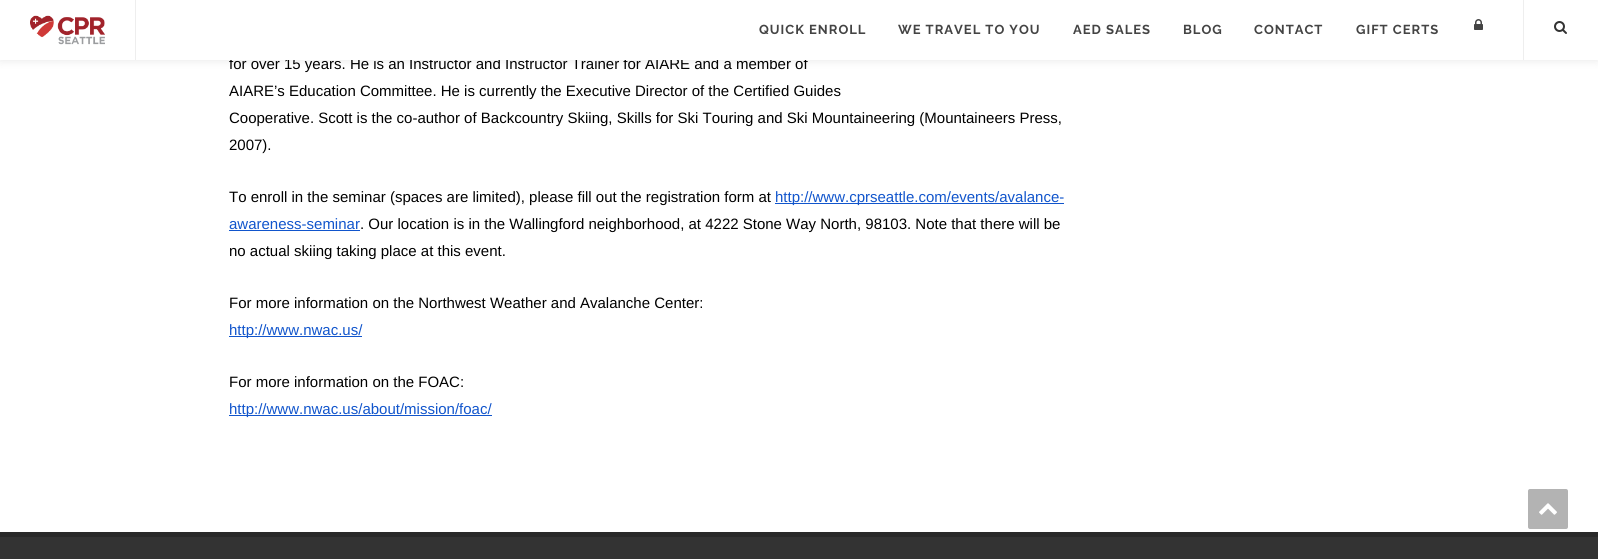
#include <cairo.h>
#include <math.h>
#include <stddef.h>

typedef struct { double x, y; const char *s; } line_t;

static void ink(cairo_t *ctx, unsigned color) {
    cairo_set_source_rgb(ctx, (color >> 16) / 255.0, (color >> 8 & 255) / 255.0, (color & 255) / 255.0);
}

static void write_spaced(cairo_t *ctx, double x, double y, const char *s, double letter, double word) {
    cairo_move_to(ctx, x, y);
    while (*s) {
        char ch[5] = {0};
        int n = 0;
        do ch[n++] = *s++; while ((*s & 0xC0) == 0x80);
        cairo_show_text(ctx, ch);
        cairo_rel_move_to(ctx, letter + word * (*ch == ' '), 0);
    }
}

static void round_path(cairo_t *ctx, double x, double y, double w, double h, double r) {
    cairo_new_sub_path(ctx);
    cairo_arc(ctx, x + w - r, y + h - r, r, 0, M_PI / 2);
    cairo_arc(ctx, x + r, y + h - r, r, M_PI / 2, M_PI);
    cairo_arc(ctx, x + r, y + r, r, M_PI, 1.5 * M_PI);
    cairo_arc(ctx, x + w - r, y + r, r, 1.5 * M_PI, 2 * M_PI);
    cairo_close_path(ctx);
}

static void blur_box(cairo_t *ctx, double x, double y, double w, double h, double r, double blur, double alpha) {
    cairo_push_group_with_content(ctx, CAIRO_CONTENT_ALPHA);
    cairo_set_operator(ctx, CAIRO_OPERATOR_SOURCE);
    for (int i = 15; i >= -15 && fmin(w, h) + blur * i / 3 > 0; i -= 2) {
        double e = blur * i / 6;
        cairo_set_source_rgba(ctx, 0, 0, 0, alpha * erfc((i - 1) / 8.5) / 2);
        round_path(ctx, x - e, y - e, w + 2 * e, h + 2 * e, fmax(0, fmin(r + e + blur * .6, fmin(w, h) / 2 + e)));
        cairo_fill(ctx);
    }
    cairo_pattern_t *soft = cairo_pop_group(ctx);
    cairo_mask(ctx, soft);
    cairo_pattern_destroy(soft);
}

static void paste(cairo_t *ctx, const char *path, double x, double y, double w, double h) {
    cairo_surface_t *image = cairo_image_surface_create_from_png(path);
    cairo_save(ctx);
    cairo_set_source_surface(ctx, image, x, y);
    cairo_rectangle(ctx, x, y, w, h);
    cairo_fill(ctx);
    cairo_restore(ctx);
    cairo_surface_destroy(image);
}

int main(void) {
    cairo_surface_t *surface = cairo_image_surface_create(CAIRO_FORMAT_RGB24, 1598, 559);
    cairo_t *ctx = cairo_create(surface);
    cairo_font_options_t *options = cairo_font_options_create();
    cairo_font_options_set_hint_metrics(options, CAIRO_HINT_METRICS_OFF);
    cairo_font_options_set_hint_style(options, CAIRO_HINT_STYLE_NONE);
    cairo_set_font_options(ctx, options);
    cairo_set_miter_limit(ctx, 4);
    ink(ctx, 0xFFFFFF);
    cairo_paint(ctx);
    ink(ctx, 0x000000);
    blur_box(ctx, 0, 0, 1598, 60, 0, 5, 0.1);
    cairo_select_font_face(ctx, "Liberation Sans", CAIRO_FONT_SLANT_NORMAL, CAIRO_FONT_WEIGHT_NORMAL);
    cairo_set_font_size(ctx, 15);
    ink(ctx, 0x000000);
    cairo_move_to(ctx, 229, 69);
    cairo_show_text(ctx, "for over 15 years. He is an Instructor and Instructor Trainer for AIARE and a member of");
    ink(ctx, 0xFFFFFF);
    cairo_rectangle(ctx, 0, 0, 1598, 60);
    cairo_fill(ctx);
    ink(ctx, 0xEEEEEE);
    cairo_rectangle(ctx, 135, 0, 1, 60);
    cairo_fill(ctx);
    paste(ctx, "media/1.png", 30, 15, 75, 30);
    cairo_rectangle(ctx, 1523, 0, 1, 60);
    cairo_fill(ctx);
    cairo_select_font_face(ctx, "Raleway", CAIRO_FONT_SLANT_NORMAL, CAIRO_FONT_WEIGHT_BOLD);
    cairo_set_font_size(ctx, 13);
    ink(ctx, 0x444444);
    {
        static const line_t items[] = {
            {759, 34, "QUICK ENROLL"},
            {898, 34, "WE TRAVEL TO YOU"},
            {1073, 34, "AED SALES"},
            {1183, 34, "BLOG"},
            {1254, 34, "CONTACT"},
            {1356, 34, "GIFT CERTS"},
        };
        for (size_t i = 0; i < sizeof items / sizeof *items; i++) {
            write_spaced(ctx, items[i].x, items[i].y, items[i].s, 1, 0);
        }
    }
    paste(ctx, "media/2.png", 1474, 19, 9, 11);
    paste(ctx, "media/3.png", 1554, 21, 13, 13);
    cairo_select_font_face(ctx, "Liberation Sans", CAIRO_FONT_SLANT_NORMAL, CAIRO_FONT_WEIGHT_NORMAL);
    cairo_set_font_size(ctx, 15);
    ink(ctx, 0x000000);
    {
        static const line_t items[] = {
            {229, 96, "AIARE’s Education Committee. He is currently the Executive Director of the Certified Guides"},
            {229, 123, "Cooperative. Scott is the co-author of Backcountry Skiing, Skills for Ski Touring and Ski Mountaineering (Mountaineers Press,"},
            {229, 150, "2007)."},
            {229, 202, "To enroll in the seminar (spaces are limited), please fill out the registration form at"},
        };
        for (size_t i = 0; i < sizeof items / sizeof *items; i++) {
            cairo_move_to(ctx, items[i].x, items[i].y);
            cairo_show_text(ctx, items[i].s);
        }
    }
    ink(ctx, 0x1155CC);
    cairo_rectangle(ctx, 775, 203, 289, 1);
    cairo_fill(ctx);
    cairo_move_to(ctx, 775, 202);
    cairo_show_text(ctx, "http://www.cprseattle.com/events/avalance-");
    cairo_move_to(ctx, 229, 229);
    cairo_show_text(ctx, "awareness-seminar");
    cairo_rectangle(ctx, 229, 230, 131, 1);
    cairo_fill(ctx);
    ink(ctx, 0x000000);
    {
        static const line_t items[] = {
            {360, 229, ". Our location is in the Wallingford neighborhood, at 4222 Stone Way North, 98103. Note that there will be"},
            {229, 256, "no actual skiing taking place at this event."},
            {229, 308, "For more information on the Northwest Weather and Avalanche Center:"},
        };
        for (size_t i = 0; i < sizeof items / sizeof *items; i++) {
            cairo_move_to(ctx, items[i].x, items[i].y);
            cairo_show_text(ctx, items[i].s);
        }
    }
    ink(ctx, 0x1155CC);
    cairo_rectangle(ctx, 229, 336, 133, 1);
    cairo_fill(ctx);
    cairo_move_to(ctx, 229, 335);
    cairo_show_text(ctx, "http://www.nwac.us/");
    ink(ctx, 0x000000);
    cairo_move_to(ctx, 229, 387);
    cairo_show_text(ctx, "For more information on the FOAC:");
    ink(ctx, 0x1155CC);
    cairo_rectangle(ctx, 229, 415, 263, 1);
    cairo_fill(ctx);
    cairo_move_to(ctx, 229, 414);
    cairo_show_text(ctx, "http://www.nwac.us/about/mission/foac/");
    ink(ctx, 0x333333);
    cairo_rectangle(ctx, 0, 537, 1598, 22);
    cairo_fill(ctx);
    ink(ctx, 0x292929);
    cairo_rectangle(ctx, 0, 532, 1598, 5);
    cairo_fill(ctx);
    ink(ctx, 0xB3B3B3);
    round_path(ctx, 1528, 489, 40, 40, 2);
    cairo_fill(ctx);
    paste(ctx, "media/4.png", 1539, 503, 18, 12);
    cairo_surface_write_to_png(surface, "image.png");
    cairo_font_options_destroy(options);
    cairo_destroy(ctx);
    cairo_surface_destroy(surface);
    return 0;
}
